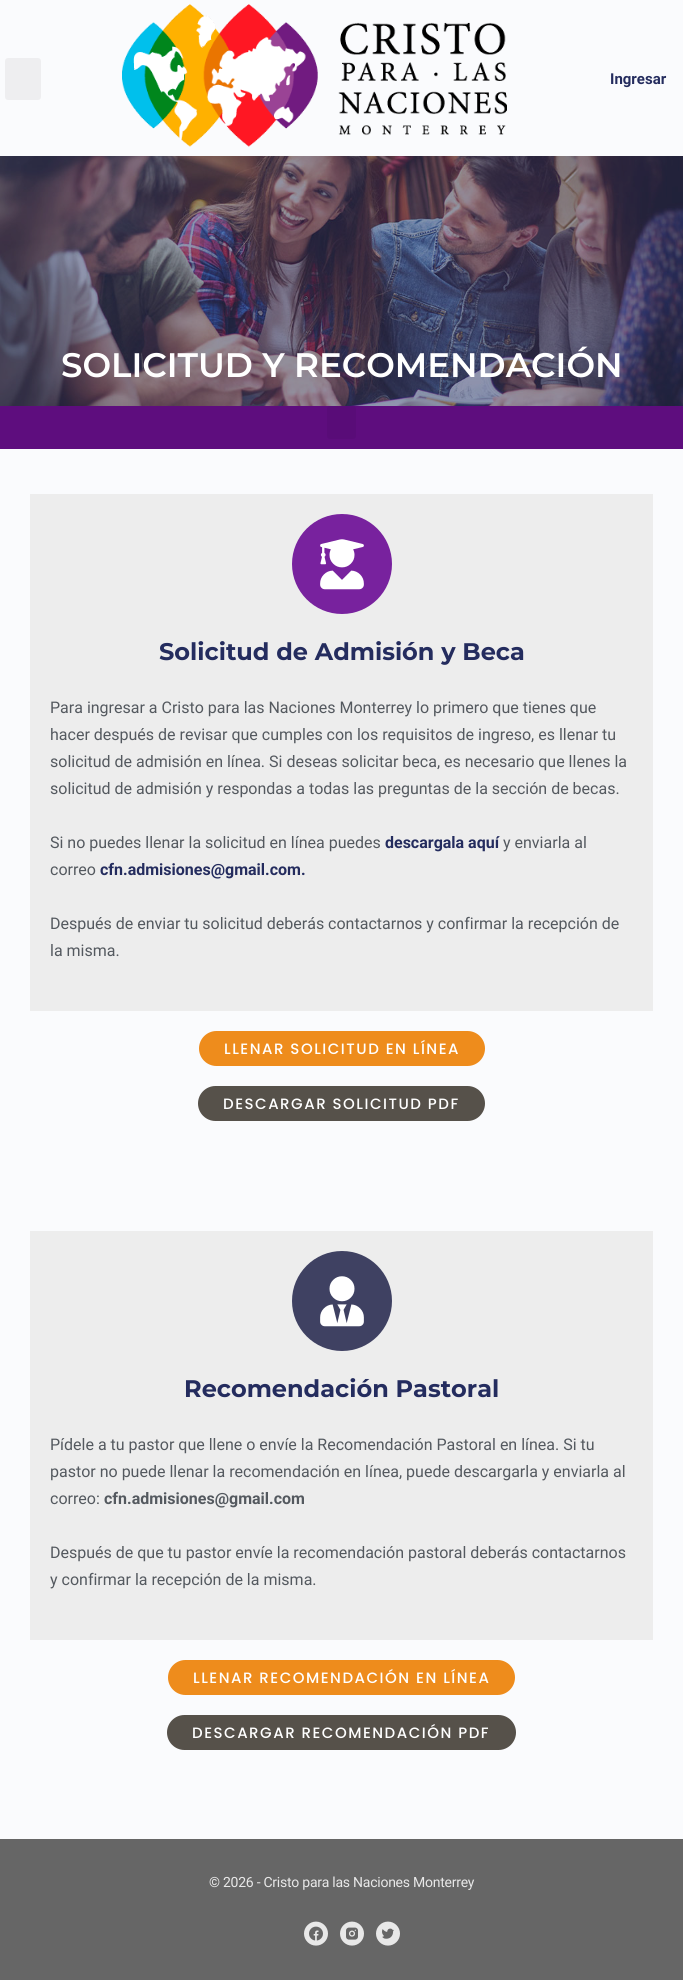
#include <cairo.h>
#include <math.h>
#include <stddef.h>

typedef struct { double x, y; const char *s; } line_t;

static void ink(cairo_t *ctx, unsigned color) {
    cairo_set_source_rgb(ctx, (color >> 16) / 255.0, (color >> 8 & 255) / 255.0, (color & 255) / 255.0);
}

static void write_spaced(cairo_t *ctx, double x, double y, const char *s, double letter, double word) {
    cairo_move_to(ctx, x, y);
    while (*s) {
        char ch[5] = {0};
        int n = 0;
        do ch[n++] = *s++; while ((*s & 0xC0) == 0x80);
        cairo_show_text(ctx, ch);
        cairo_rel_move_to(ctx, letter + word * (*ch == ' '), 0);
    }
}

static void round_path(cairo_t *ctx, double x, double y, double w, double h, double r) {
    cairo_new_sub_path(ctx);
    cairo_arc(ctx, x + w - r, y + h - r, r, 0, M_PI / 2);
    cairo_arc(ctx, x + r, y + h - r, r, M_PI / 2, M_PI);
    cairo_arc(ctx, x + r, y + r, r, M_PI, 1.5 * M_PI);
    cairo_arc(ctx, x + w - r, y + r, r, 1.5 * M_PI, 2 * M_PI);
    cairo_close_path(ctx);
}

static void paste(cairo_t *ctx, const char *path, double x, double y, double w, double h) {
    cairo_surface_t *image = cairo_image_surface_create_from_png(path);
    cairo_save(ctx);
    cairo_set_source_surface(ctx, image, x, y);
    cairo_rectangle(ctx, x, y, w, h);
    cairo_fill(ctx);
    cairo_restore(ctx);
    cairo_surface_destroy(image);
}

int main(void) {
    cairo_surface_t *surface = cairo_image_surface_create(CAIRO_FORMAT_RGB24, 683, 1980);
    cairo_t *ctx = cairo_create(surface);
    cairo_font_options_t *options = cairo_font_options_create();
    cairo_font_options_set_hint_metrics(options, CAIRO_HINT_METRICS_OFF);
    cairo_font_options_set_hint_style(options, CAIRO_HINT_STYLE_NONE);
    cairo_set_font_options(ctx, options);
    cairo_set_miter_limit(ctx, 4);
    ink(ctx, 0xFAFBFD);
    cairo_paint(ctx);
    ink(ctx, 0xEEEEF0);
    round_path(ctx, 5, 58, 36, 42, 3);
    cairo_fill(ctx);
    paste(ctx, "media/1.png", 122, 4, 385, 143);
    cairo_select_font_face(ctx, "Roboto", CAIRO_FONT_SLANT_NORMAL, CAIRO_FONT_WEIGHT_BOLD);
    cairo_set_font_size(ctx, 15);
    ink(ctx, 0x242C5E);
    cairo_move_to(ctx, 610, 84);
    cairo_show_text(ctx, "Ingresar");
    paste(ctx, "media/2.png", 0, 156, 683, 250);
    cairo_select_font_face(ctx, "Montserrat SemiBold", CAIRO_FONT_SLANT_NORMAL, CAIRO_FONT_WEIGHT_NORMAL);
    cairo_set_font_size(ctx, 34);
    ink(ctx, 0xFFFFFF);
    cairo_move_to(ctx, 61, 377);
    cairo_show_text(ctx, "SOLICITUD Y RECOMENDACIÓN");
    ink(ctx, 0x5E0D7E);
    cairo_rectangle(ctx, 0, 406, 683, 43);
    cairo_fill(ctx);
    ink(ctx, 0x590C78);
    round_path(ctx, 327, 406, 29, 33, 3);
    cairo_fill(ctx);
    ink(ctx, 0xEDEDED);
    cairo_rectangle(ctx, 30, 494, 623, 517);
    cairo_fill(ctx);
    ink(ctx, 0x78229E);
    cairo_arc(ctx, 342, 564, 50, 0, 2 * M_PI);
    cairo_fill(ctx);
    paste(ctx, "media/3.png", 320, 539, 44, 51);
    cairo_select_font_face(ctx, "Montserrat", CAIRO_FONT_SLANT_NORMAL, CAIRO_FONT_WEIGHT_BOLD);
    cairo_set_font_size(ctx, 24);
    ink(ctx, 0x242C5E);
    cairo_move_to(ctx, 159, 660);
    cairo_show_text(ctx, "Solicitud de Admisión y Beca");
    cairo_select_font_face(ctx, "Roboto", CAIRO_FONT_SLANT_NORMAL, CAIRO_FONT_WEIGHT_NORMAL);
    cairo_set_font_size(ctx, 16);
    ink(ctx, 0x54595F);
    {
        static const line_t items[] = {
            {50, 713, "Para ingresar a Cristo para las Naciones Monterrey lo primero que tienes que"},
            {50, 740, "hacer después de revisar que cumples con los requisitos de ingreso, es llenar tu"},
            {50, 767, "solicitud de admisión en línea. Si deseas solicitar beca, es necesario que llenes la"},
            {50, 794, "solicitud de admisión y respondas a todas las preguntas de la sección de becas."},
            {50, 848, "Si no puedes llenar la solicitud en línea puedes"},
        };
        for (size_t i = 0; i < sizeof items / sizeof *items; i++) {
            cairo_move_to(ctx, items[i].x, items[i].y);
            cairo_show_text(ctx, items[i].s);
        }
    }
    cairo_select_font_face(ctx, "Roboto", CAIRO_FONT_SLANT_NORMAL, CAIRO_FONT_WEIGHT_BOLD);
    ink(ctx, 0x242C5E);
    cairo_move_to(ctx, 385, 848);
    cairo_show_text(ctx, "descargala aquí");
    cairo_select_font_face(ctx, "Roboto", CAIRO_FONT_SLANT_NORMAL, CAIRO_FONT_WEIGHT_NORMAL);
    ink(ctx, 0x54595F);
    cairo_move_to(ctx, 503, 848);
    cairo_show_text(ctx, "y enviarla al");
    cairo_move_to(ctx, 50, 875);
    cairo_show_text(ctx, "correo");
    cairo_select_font_face(ctx, "Roboto", CAIRO_FONT_SLANT_NORMAL, CAIRO_FONT_WEIGHT_BOLD);
    ink(ctx, 0x242C5E);
    cairo_move_to(ctx, 100, 875);
    cairo_show_text(ctx, "cfn.admisiones@gmail.com.");
    cairo_select_font_face(ctx, "Roboto", CAIRO_FONT_SLANT_NORMAL, CAIRO_FONT_WEIGHT_NORMAL);
    ink(ctx, 0x54595F);
    cairo_move_to(ctx, 50, 929);
    cairo_show_text(ctx, "Después de enviar tu solicitud deberás contactarnos y confirmar la recepción de");
    cairo_move_to(ctx, 50, 956);
    cairo_show_text(ctx, "la misma.");
    ink(ctx, 0xEE8C1C);
    round_path(ctx, 199, 1031, 286, 35, 17.5);
    cairo_fill(ctx);
    cairo_select_font_face(ctx, "Poppins Medium", CAIRO_FONT_SLANT_NORMAL, CAIRO_FONT_WEIGHT_NORMAL);
    cairo_set_font_size(ctx, 15);
    ink(ctx, 0xFFFFFF);
    write_spaced(ctx, 224, 1054, "LLENAR SOLICITUD EN LÍNEA", 1.5, 0);
    ink(ctx, 0x56514A);
    round_path(ctx, 198, 1086, 287, 35, 17.5);
    cairo_fill(ctx);
    ink(ctx, 0xFFFFFF);
    write_spaced(ctx, 223, 1109, "DESCARGAR SOLICITUD PDF", 1.5, 0);
    ink(ctx, 0xEDEDED);
    cairo_rectangle(ctx, 30, 1231, 623, 409);
    cairo_fill(ctx);
    ink(ctx, 0x3F4162);
    cairo_arc(ctx, 342, 1301, 50, 0, 2 * M_PI);
    cairo_fill(ctx);
    paste(ctx, "media/4.png", 320, 1276, 44, 51);
    cairo_select_font_face(ctx, "Montserrat", CAIRO_FONT_SLANT_NORMAL, CAIRO_FONT_WEIGHT_BOLD);
    cairo_set_font_size(ctx, 24);
    ink(ctx, 0x242C5E);
    cairo_move_to(ctx, 184, 1397);
    cairo_show_text(ctx, "Recomendación Pastoral");
    cairo_select_font_face(ctx, "Roboto", CAIRO_FONT_SLANT_NORMAL, CAIRO_FONT_WEIGHT_NORMAL);
    cairo_set_font_size(ctx, 16);
    ink(ctx, 0x54595F);
    {
        static const line_t items[] = {
            {50, 1450, "Pídele a tu pastor que llene o envíe la Recomendación Pastoral en línea. Si tu"},
            {50, 1477, "pastor no puede llenar la recomendación en línea, puede descargarla y enviarla al"},
            {50, 1504, "correo:"},
        };
        for (size_t i = 0; i < sizeof items / sizeof *items; i++) {
            cairo_move_to(ctx, items[i].x, items[i].y);
            cairo_show_text(ctx, items[i].s);
        }
    }
    cairo_select_font_face(ctx, "Roboto", CAIRO_FONT_SLANT_NORMAL, CAIRO_FONT_WEIGHT_BOLD);
    cairo_move_to(ctx, 104, 1504);
    cairo_show_text(ctx, "cfn.admisiones@gmail.com");
    cairo_select_font_face(ctx, "Roboto", CAIRO_FONT_SLANT_NORMAL, CAIRO_FONT_WEIGHT_NORMAL);
    cairo_move_to(ctx, 50, 1558);
    cairo_show_text(ctx, "Después de que tu pastor envíe la recomendación pastoral deberás contactarnos");
    cairo_move_to(ctx, 50, 1585);
    cairo_show_text(ctx, "y confirmar la recepción de la misma.");
    ink(ctx, 0xEE8C1C);
    round_path(ctx, 168, 1660, 347, 35, 17.5);
    cairo_fill(ctx);
    cairo_select_font_face(ctx, "Poppins Medium", CAIRO_FONT_SLANT_NORMAL, CAIRO_FONT_WEIGHT_NORMAL);
    cairo_set_font_size(ctx, 15);
    ink(ctx, 0xFFFFFF);
    write_spaced(ctx, 193, 1683, "LLENAR RECOMENDACIÓN EN LÍNEA", 1.5, 0);
    ink(ctx, 0x56514A);
    round_path(ctx, 167, 1715, 349, 35, 17.5);
    cairo_fill(ctx);
    ink(ctx, 0xFFFFFF);
    write_spaced(ctx, 192, 1738, "DESCARGAR RECOMENDACIÓN PDF", 1.5, 0);
    ink(ctx, 0x666666);
    cairo_rectangle(ctx, 0, 1839, 683, 141);
    cairo_fill(ctx);
    cairo_select_font_face(ctx, "Roboto", CAIRO_FONT_SLANT_NORMAL, CAIRO_FONT_WEIGHT_NORMAL);
    cairo_set_font_size(ctx, 14);
    ink(ctx, 0xE8E8E8);
    write_spaced(ctx, 209, 1887, "© 2026 - Cristo para las Naciones Monterrey", -0.25, 0);
    paste(ctx, "media/5.png", 304, 1921, 24, 25);
    paste(ctx, "media/6.png", 340, 1921, 24, 25);
    paste(ctx, "media/7.png", 376, 1921, 24, 25);
    cairo_surface_write_to_png(surface, "image.png");
    cairo_font_options_destroy(options);
    cairo_destroy(ctx);
    cairo_surface_destroy(surface);
    return 0;
}
